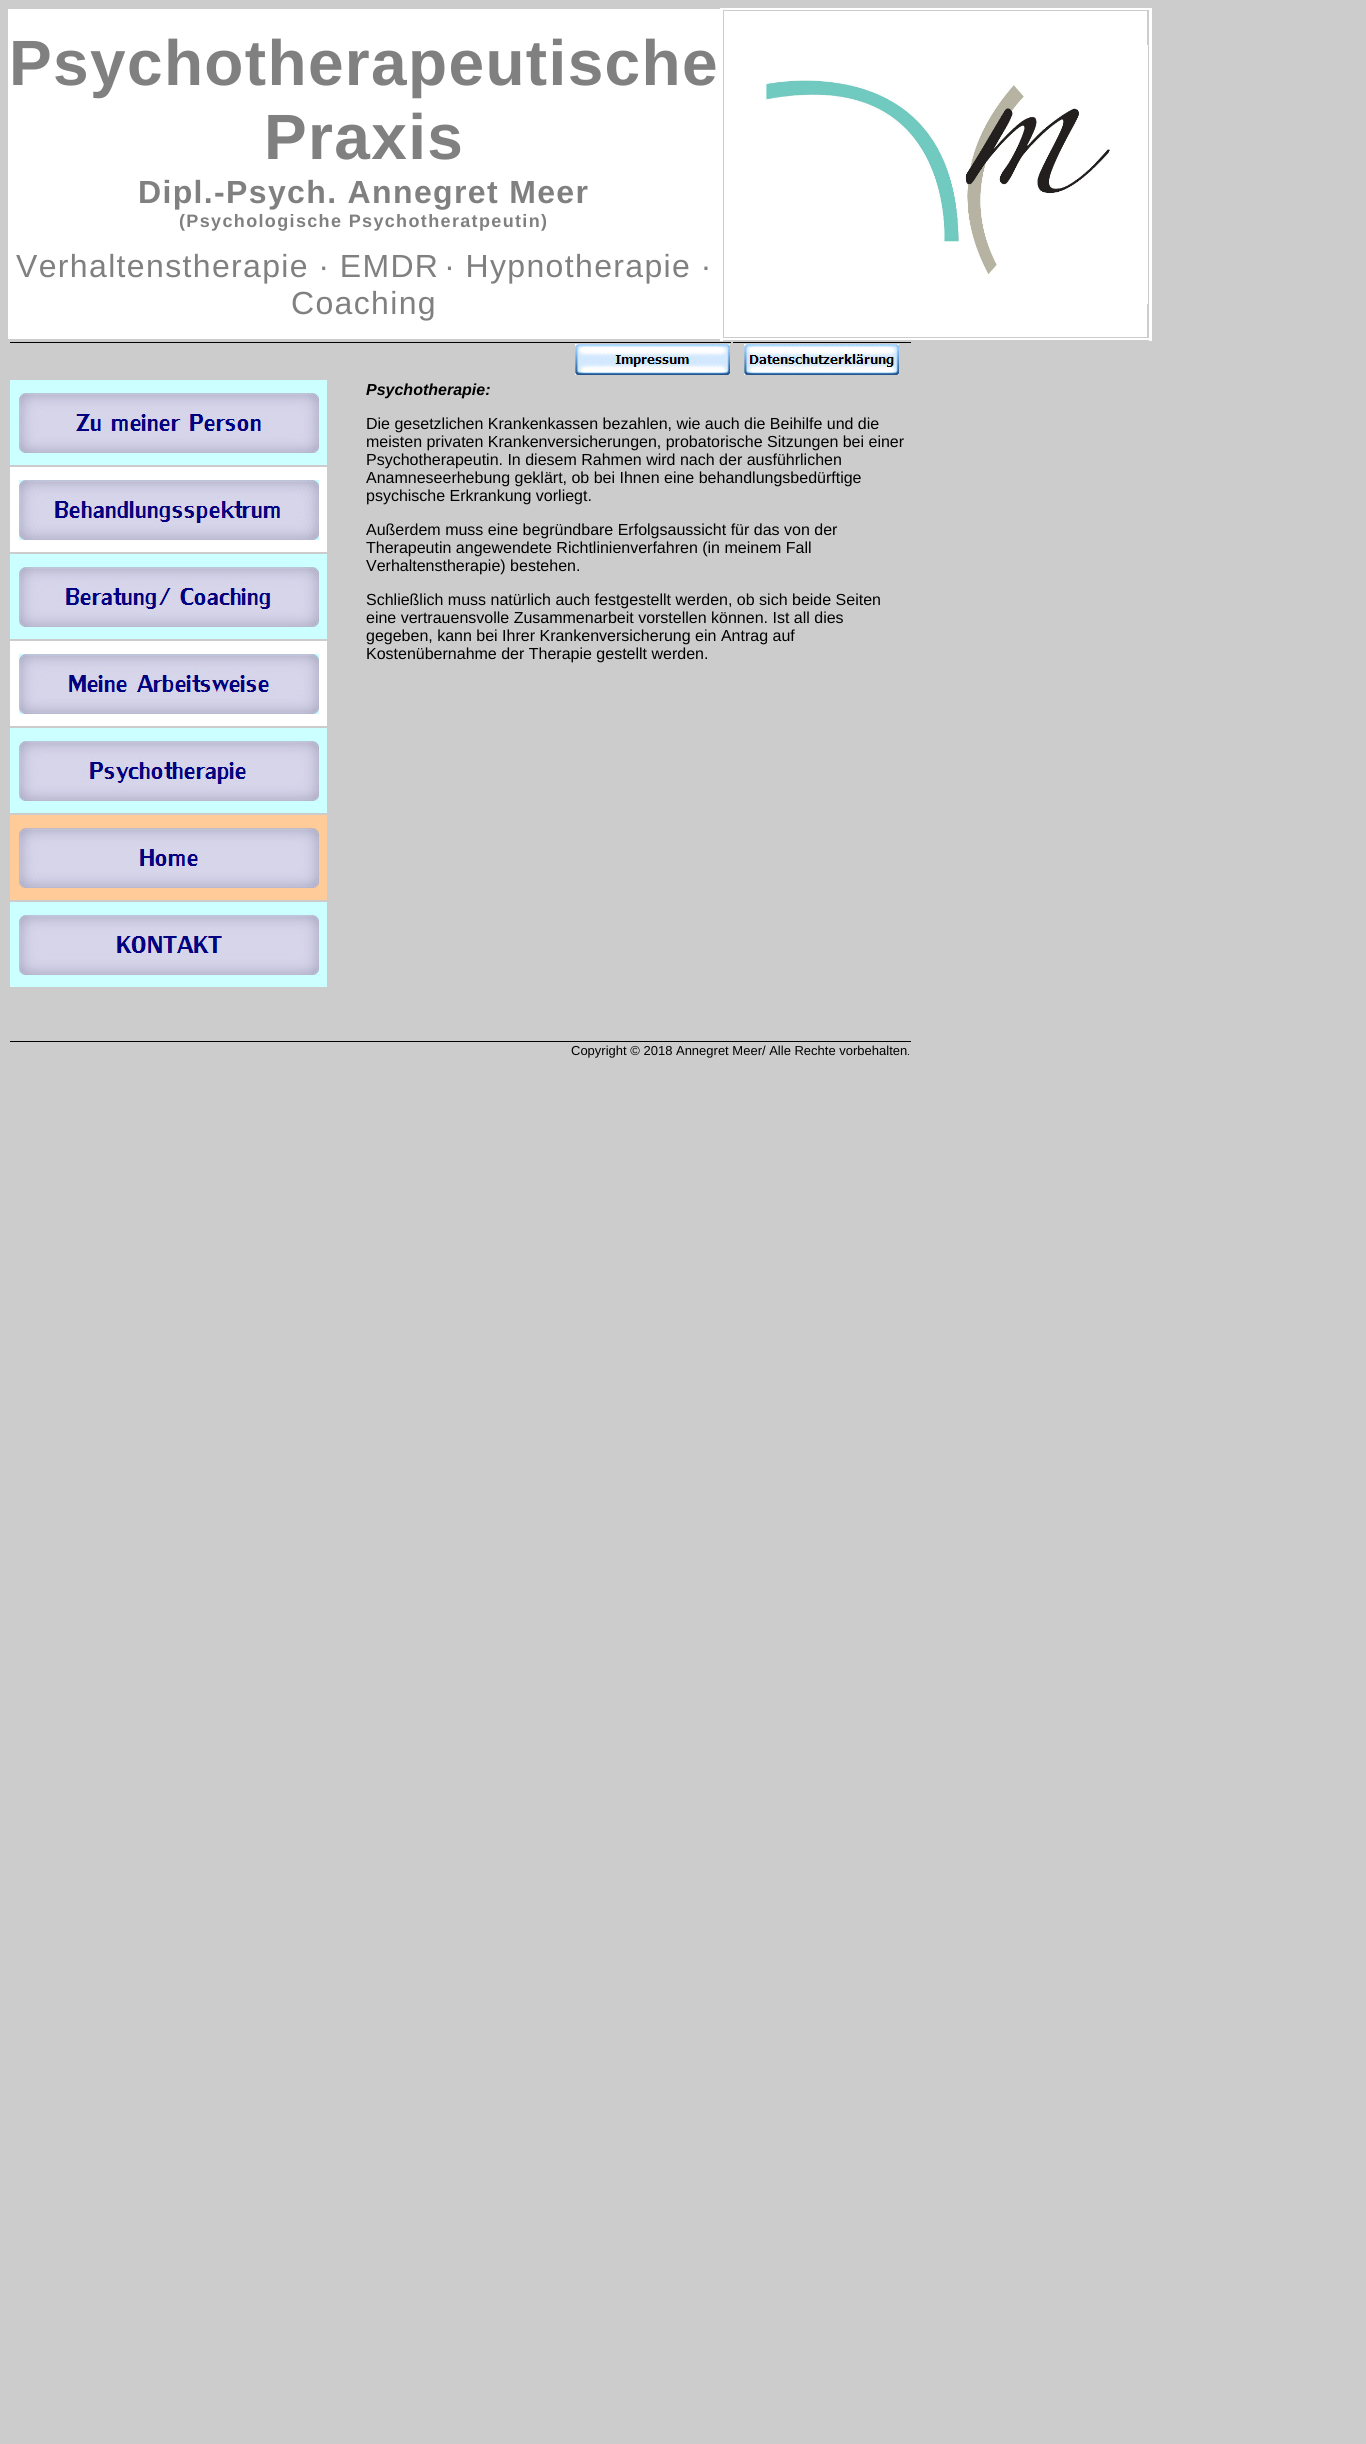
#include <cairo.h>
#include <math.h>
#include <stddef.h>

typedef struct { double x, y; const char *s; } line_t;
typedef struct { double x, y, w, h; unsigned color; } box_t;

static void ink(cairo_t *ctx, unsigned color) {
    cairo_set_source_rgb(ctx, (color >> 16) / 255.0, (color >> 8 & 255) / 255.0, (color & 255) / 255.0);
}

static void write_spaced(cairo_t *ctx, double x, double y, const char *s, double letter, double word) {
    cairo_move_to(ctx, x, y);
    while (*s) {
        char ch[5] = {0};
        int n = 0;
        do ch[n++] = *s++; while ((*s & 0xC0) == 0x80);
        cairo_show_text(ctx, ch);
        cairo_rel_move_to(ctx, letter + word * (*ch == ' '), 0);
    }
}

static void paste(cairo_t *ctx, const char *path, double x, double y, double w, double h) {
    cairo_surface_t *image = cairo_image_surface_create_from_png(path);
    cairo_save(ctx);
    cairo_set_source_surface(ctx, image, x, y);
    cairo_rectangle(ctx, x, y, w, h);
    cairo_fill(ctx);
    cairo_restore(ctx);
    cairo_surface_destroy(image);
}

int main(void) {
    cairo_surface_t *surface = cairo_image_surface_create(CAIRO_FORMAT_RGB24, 1366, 2444);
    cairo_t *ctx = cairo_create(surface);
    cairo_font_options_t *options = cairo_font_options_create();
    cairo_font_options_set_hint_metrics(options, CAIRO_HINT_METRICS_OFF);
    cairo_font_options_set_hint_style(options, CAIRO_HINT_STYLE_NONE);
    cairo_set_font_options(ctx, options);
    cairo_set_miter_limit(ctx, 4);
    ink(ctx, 0xCCCCCC);
    cairo_paint(ctx);
    ink(ctx, 0xFFFFFF);
    cairo_rectangle(ctx, 8, 9, 712, 330);
    cairo_fill(ctx);
    cairo_select_font_face(ctx, "Liberation Sans", CAIRO_FONT_SLANT_NORMAL, CAIRO_FONT_WEIGHT_BOLD);
    cairo_set_font_size(ctx, 64);
    ink(ctx, 0x808080);
    write_spaced(ctx, 9, 85, "Psychotherapeutische", 1.35, 0);
    write_spaced(ctx, 264, 159, "Praxis", 1.35, 0);
    cairo_set_font_size(ctx, 32);
    write_spaced(ctx, 138, 203, "Dipl.-Psych. Annegret Meer", 1.35, 0);
    cairo_set_font_size(ctx, 18);
    write_spaced(ctx, 179, 227, "(Psychologische Psychotheratpeutin)", 1.35, 0);
    cairo_select_font_face(ctx, "Liberation Sans", CAIRO_FONT_SLANT_NORMAL, CAIRO_FONT_WEIGHT_NORMAL);
    cairo_set_font_size(ctx, 32);
    {
        static const line_t items[] = {
            {16, 277, "Verhaltenstherapie ∙ EMDR"},
            {445, 277, "∙ Hypnotherapie ∙"},
            {291, 314, "Coaching"},
        };
        for (size_t i = 0; i < sizeof items / sizeof *items; i++) {
            write_spaced(ctx, items[i].x, items[i].y, items[i].s, 1.35, 0);
        }
    }
    {
        static const box_t items[] = {
            {724, 11, 423, 326, 0xFFFFFF},
            {720, 8, 431, 2, 0xFFFFFF},
            {720, 338, 431, 2, 0xFFFFFF},
            {1149, 8, 3, 333, 0xFFFFFF},
            {720, 8, 3, 333, 0xFFFFFF},
        };
        for (size_t i = 0; i < sizeof items / sizeof *items; i++) {
            ink(ctx, items[i].color);
            cairo_rectangle(ctx, items[i].x, items[i].y, items[i].w, items[i].h);
            cairo_fill(ctx);
        }
    }
    paste(ctx, "media/1.png", 765, 45, 383, 259);
    ink(ctx, 0x000000);
    cairo_rectangle(ctx, 10, 342, 721, 1);
    cairo_fill(ctx);
    paste(ctx, "media/2.png", 575, 344, 155, 31);
    cairo_rectangle(ctx, 733, 342, 178, 1);
    cairo_fill(ctx);
    paste(ctx, "media/3.png", 744, 344, 155, 31);
    ink(ctx, 0xFFFFFF);
    cairo_rectangle(ctx, 10, 467, 317, 85);
    cairo_fill(ctx);
    paste(ctx, "media/4.png", 19, 480, 300, 60);
    ink(ctx, 0xCCFFFF);
    cairo_rectangle(ctx, 10, 380, 317, 85);
    cairo_fill(ctx);
    paste(ctx, "media/5.png", 19, 393, 300, 60);
    cairo_select_font_face(ctx, "Liberation Sans", CAIRO_FONT_SLANT_ITALIC, CAIRO_FONT_WEIGHT_BOLD);
    cairo_set_font_size(ctx, 16);
    ink(ctx, 0x000000);
    cairo_move_to(ctx, 366, 395);
    cairo_show_text(ctx, "Psychotherapie:");
    cairo_select_font_face(ctx, "Liberation Sans", CAIRO_FONT_SLANT_NORMAL, CAIRO_FONT_WEIGHT_NORMAL);
    {
        static const line_t items[] = {
            {366, 429, "Die gesetzlichen Krankenkassen bezahlen, wie auch die Beihilfe und die"},
            {366, 447, "meisten privaten Krankenversicherungen, probatorische Sitzungen bei einer"},
            {366, 465, "Psychotherapeutin. In diesem Rahmen wird nach der ausführlichen"},
            {366, 483, "Anamneseerhebung geklärt, ob bei Ihnen eine behandlungsbedürftige"},
            {366, 501, "psychische Erkrankung vorliegt."},
            {366, 535, "Außerdem muss eine begründbare Erfolgsaussicht für das von der"},
            {366, 553, "Therapeutin angewendete Richtlinienverfahren (in meinem Fall"},
            {366, 571, "Verhaltenstherapie) bestehen."},
            {366, 605, "Schließlich muss natürlich auch festgestellt werden, ob sich beide Seiten"},
            {366, 623, "eine vertrauensvolle Zusammenarbeit vorstellen können. Ist all dies"},
            {366, 641, "gegeben, kann bei Ihrer Krankenversicherung ein Antrag auf"},
            {366, 659, "Kostenübernahme der Therapie gestellt werden."},
        };
        for (size_t i = 0; i < sizeof items / sizeof *items; i++) {
            cairo_move_to(ctx, items[i].x, items[i].y);
            cairo_show_text(ctx, items[i].s);
        }
    }
    ink(ctx, 0xCCFFFF);
    cairo_rectangle(ctx, 10, 554, 317, 85);
    cairo_fill(ctx);
    paste(ctx, "media/6.png", 19, 567, 300, 60);
    ink(ctx, 0xFFFFFF);
    cairo_rectangle(ctx, 10, 641, 317, 85);
    cairo_fill(ctx);
    paste(ctx, "media/7.png", 19, 654, 300, 60);
    ink(ctx, 0xCCFFFF);
    cairo_rectangle(ctx, 10, 728, 317, 85);
    cairo_fill(ctx);
    paste(ctx, "media/8.png", 19, 741, 300, 60);
    ink(ctx, 0xFFCC99);
    cairo_rectangle(ctx, 10, 815, 317, 85);
    cairo_fill(ctx);
    paste(ctx, "media/9.png", 19, 828, 300, 60);
    ink(ctx, 0xCCFFFF);
    cairo_rectangle(ctx, 10, 902, 317, 85);
    cairo_fill(ctx);
    paste(ctx, "media/10.png", 19, 915, 300, 60);
    ink(ctx, 0x000000);
    cairo_rectangle(ctx, 10, 1041, 901, 1);
    cairo_fill(ctx);
    cairo_set_font_size(ctx, 13);
    cairo_move_to(ctx, 571, 1055);
    cairo_show_text(ctx, "Copyright © 2018 Annegret Meer/ Alle Rechte vorbehalten");
    cairo_set_font_size(ctx, 10);
    cairo_move_to(ctx, 907, 1055);
    cairo_show_text(ctx, ".");
    cairo_surface_write_to_png(surface, "image.png");
    cairo_font_options_destroy(options);
    cairo_destroy(ctx);
    cairo_surface_destroy(surface);
    return 0;
}
